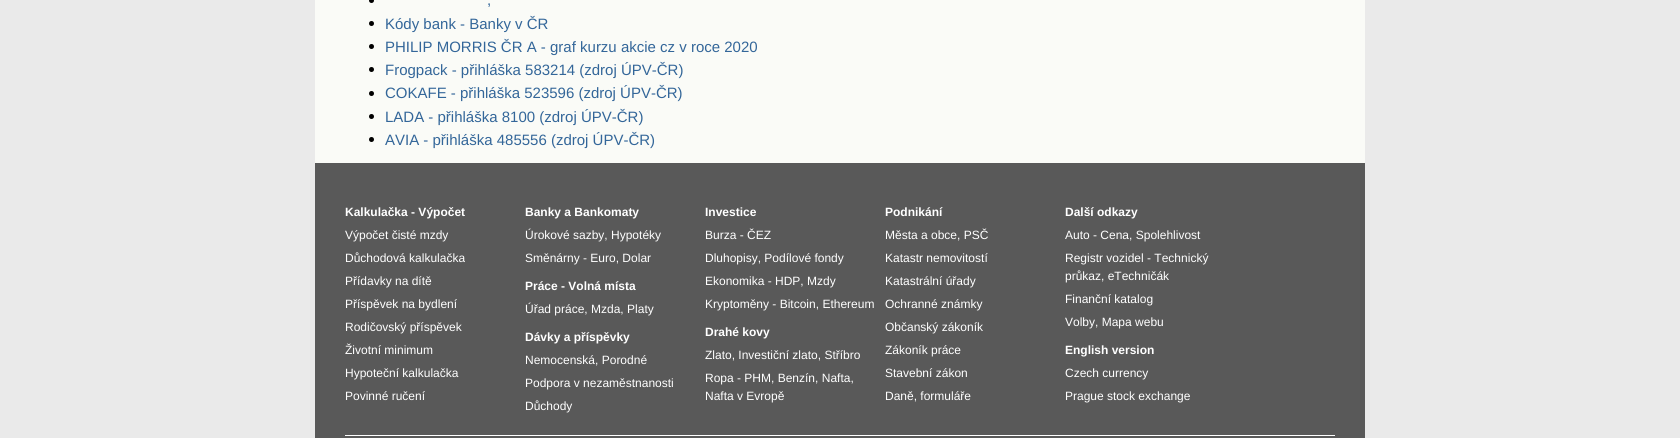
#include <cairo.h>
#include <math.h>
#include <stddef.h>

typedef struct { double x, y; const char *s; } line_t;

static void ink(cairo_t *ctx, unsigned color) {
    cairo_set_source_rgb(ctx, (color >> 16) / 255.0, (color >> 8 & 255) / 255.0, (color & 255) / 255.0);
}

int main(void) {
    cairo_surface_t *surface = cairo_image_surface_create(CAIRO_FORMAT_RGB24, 1680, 438);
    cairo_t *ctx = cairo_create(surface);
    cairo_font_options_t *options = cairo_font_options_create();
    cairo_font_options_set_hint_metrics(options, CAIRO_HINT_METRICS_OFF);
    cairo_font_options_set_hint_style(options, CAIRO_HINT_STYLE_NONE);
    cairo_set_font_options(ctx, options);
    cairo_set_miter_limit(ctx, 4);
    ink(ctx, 0xEAEAEA);
    cairo_paint(ctx);
    ink(ctx, 0xFAFBF7);
    cairo_rectangle(ctx, 315, 0, 1050, 163);
    cairo_fill(ctx);
    ink(ctx, 0x000000);
    cairo_arc(ctx, 371.5, 0.5, 2.5, 0, 2 * M_PI);
    cairo_fill(ctx);
    cairo_select_font_face(ctx, "Liberation Sans", CAIRO_FONT_SLANT_NORMAL, CAIRO_FONT_WEIGHT_NORMAL);
    cairo_set_font_size(ctx, 15);
    ink(ctx, 0x336699);
    cairo_move_to(ctx, 487, 5);
    cairo_show_text(ctx, ",");
    ink(ctx, 0x000000);
    cairo_new_path(ctx);
    cairo_arc(ctx, 371.5, 23.5, 2.5, 0, 2 * M_PI);
    cairo_fill(ctx);
    ink(ctx, 0x336699);
    cairo_move_to(ctx, 385, 29);
    cairo_show_text(ctx, "Kódy bank - Banky v ČR");
    ink(ctx, 0x000000);
    cairo_new_path(ctx);
    cairo_arc(ctx, 371.5, 46.5, 2.5, 0, 2 * M_PI);
    cairo_fill(ctx);
    ink(ctx, 0x336699);
    cairo_move_to(ctx, 385, 52);
    cairo_show_text(ctx, "PHILIP MORRIS ČR A - graf kurzu akcie cz v roce 2020");
    ink(ctx, 0x000000);
    cairo_new_path(ctx);
    cairo_arc(ctx, 371.5, 69.5, 2.5, 0, 2 * M_PI);
    cairo_fill(ctx);
    ink(ctx, 0x336699);
    cairo_move_to(ctx, 385, 75);
    cairo_show_text(ctx, "Frogpack - přihláška 583214 (zdroj ÚPV-ČR)");
    ink(ctx, 0x000000);
    cairo_new_path(ctx);
    cairo_arc(ctx, 371.5, 93.5, 2.5, 0, 2 * M_PI);
    cairo_fill(ctx);
    ink(ctx, 0x336699);
    cairo_move_to(ctx, 385, 98);
    cairo_show_text(ctx, "COKAFE - přihláška 523596 (zdroj ÚPV-ČR)");
    ink(ctx, 0x000000);
    cairo_new_path(ctx);
    cairo_arc(ctx, 371.5, 116.5, 2.5, 0, 2 * M_PI);
    cairo_fill(ctx);
    ink(ctx, 0x336699);
    cairo_move_to(ctx, 385, 122);
    cairo_show_text(ctx, "LADA - přihláška 8100 (zdroj ÚPV-ČR)");
    ink(ctx, 0x000000);
    cairo_new_path(ctx);
    cairo_arc(ctx, 371.5, 139.5, 2.5, 0, 2 * M_PI);
    cairo_fill(ctx);
    ink(ctx, 0x336699);
    cairo_move_to(ctx, 385, 145);
    cairo_show_text(ctx, "AVIA - přihláška 485556 (zdroj ÚPV-ČR)");
    ink(ctx, 0x595959);
    cairo_rectangle(ctx, 315, 163, 1050, 275);
    cairo_fill(ctx);
    cairo_select_font_face(ctx, "Liberation Sans", CAIRO_FONT_SLANT_NORMAL, CAIRO_FONT_WEIGHT_BOLD);
    cairo_set_font_size(ctx, 12);
    ink(ctx, 0xFFFFFF);
    cairo_move_to(ctx, 345, 216);
    cairo_show_text(ctx, "Kalkulačka - Výpočet");
    cairo_select_font_face(ctx, "Liberation Sans", CAIRO_FONT_SLANT_NORMAL, CAIRO_FONT_WEIGHT_NORMAL);
    {
        static const line_t items[] = {
            {345, 239, "Výpočet čisté mzdy"},
            {345, 262, "Důchodová kalkulačka"},
            {345, 285, "Přídavky na dítě"},
            {345, 308, "Příspěvek na bydlení"},
            {345, 331, "Rodičovský příspěvek"},
            {345, 354, "Životní minimum"},
            {345, 377, "Hypoteční kalkulačka"},
            {345, 400, "Povinné ručení"},
        };
        for (size_t i = 0; i < sizeof items / sizeof *items; i++) {
            cairo_move_to(ctx, items[i].x, items[i].y);
            cairo_show_text(ctx, items[i].s);
        }
    }
    cairo_select_font_face(ctx, "Liberation Sans", CAIRO_FONT_SLANT_NORMAL, CAIRO_FONT_WEIGHT_BOLD);
    cairo_move_to(ctx, 525, 216);
    cairo_show_text(ctx, "Banky a Bankomaty");
    cairo_select_font_face(ctx, "Liberation Sans", CAIRO_FONT_SLANT_NORMAL, CAIRO_FONT_WEIGHT_NORMAL);
    cairo_move_to(ctx, 525, 239);
    cairo_show_text(ctx, "Úrokové sazby, Hypotéky");
    cairo_move_to(ctx, 525, 262);
    cairo_show_text(ctx, "Směnárny - Euro, Dolar");
    cairo_select_font_face(ctx, "Liberation Sans", CAIRO_FONT_SLANT_NORMAL, CAIRO_FONT_WEIGHT_BOLD);
    cairo_move_to(ctx, 525, 290);
    cairo_show_text(ctx, "Práce - Volná místa");
    cairo_select_font_face(ctx, "Liberation Sans", CAIRO_FONT_SLANT_NORMAL, CAIRO_FONT_WEIGHT_NORMAL);
    cairo_move_to(ctx, 525, 313);
    cairo_show_text(ctx, "Úřad práce, Mzda, Platy");
    cairo_select_font_face(ctx, "Liberation Sans", CAIRO_FONT_SLANT_NORMAL, CAIRO_FONT_WEIGHT_BOLD);
    cairo_move_to(ctx, 525, 341);
    cairo_show_text(ctx, "Dávky a příspěvky");
    cairo_select_font_face(ctx, "Liberation Sans", CAIRO_FONT_SLANT_NORMAL, CAIRO_FONT_WEIGHT_NORMAL);
    {
        static const line_t items[] = {
            {525, 364, "Nemocenská, Porodné"},
            {525, 387, "Podpora v nezaměstnanosti"},
            {525, 410, "Důchody"},
        };
        for (size_t i = 0; i < sizeof items / sizeof *items; i++) {
            cairo_move_to(ctx, items[i].x, items[i].y);
            cairo_show_text(ctx, items[i].s);
        }
    }
    cairo_select_font_face(ctx, "Liberation Sans", CAIRO_FONT_SLANT_NORMAL, CAIRO_FONT_WEIGHT_BOLD);
    cairo_move_to(ctx, 705, 216);
    cairo_show_text(ctx, "Investice");
    cairo_select_font_face(ctx, "Liberation Sans", CAIRO_FONT_SLANT_NORMAL, CAIRO_FONT_WEIGHT_NORMAL);
    {
        static const line_t items[] = {
            {705, 239, "Burza - ČEZ"},
            {705, 262, "Dluhopisy, Podílové fondy"},
            {705, 285, "Ekonomika - HDP, Mzdy"},
            {705, 308, "Kryptoměny - Bitcoin, Ethereum"},
        };
        for (size_t i = 0; i < sizeof items / sizeof *items; i++) {
            cairo_move_to(ctx, items[i].x, items[i].y);
            cairo_show_text(ctx, items[i].s);
        }
    }
    cairo_select_font_face(ctx, "Liberation Sans", CAIRO_FONT_SLANT_NORMAL, CAIRO_FONT_WEIGHT_BOLD);
    cairo_move_to(ctx, 705, 336);
    cairo_show_text(ctx, "Drahé kovy");
    cairo_select_font_face(ctx, "Liberation Sans", CAIRO_FONT_SLANT_NORMAL, CAIRO_FONT_WEIGHT_NORMAL);
    {
        static const line_t items[] = {
            {705, 359, "Zlato, Investiční zlato, Stříbro"},
            {705, 382, "Ropa - PHM, Benzín, Nafta,"},
            {705, 400, "Nafta v Evropě"},
        };
        for (size_t i = 0; i < sizeof items / sizeof *items; i++) {
            cairo_move_to(ctx, items[i].x, items[i].y);
            cairo_show_text(ctx, items[i].s);
        }
    }
    cairo_select_font_face(ctx, "Liberation Sans", CAIRO_FONT_SLANT_NORMAL, CAIRO_FONT_WEIGHT_BOLD);
    cairo_move_to(ctx, 885, 216);
    cairo_show_text(ctx, "Podnikání");
    cairo_select_font_face(ctx, "Liberation Sans", CAIRO_FONT_SLANT_NORMAL, CAIRO_FONT_WEIGHT_NORMAL);
    {
        static const line_t items[] = {
            {885, 239, "Města a obce, PSČ"},
            {885, 262, "Katastr nemovitostí"},
            {885, 285, "Katastrální úřady"},
            {885, 308, "Ochranné známky"},
            {885, 331, "Občanský zákoník"},
            {885, 354, "Zákoník práce"},
            {885, 377, "Stavební zákon"},
            {885, 400, "Daně, formuláře"},
        };
        for (size_t i = 0; i < sizeof items / sizeof *items; i++) {
            cairo_move_to(ctx, items[i].x, items[i].y);
            cairo_show_text(ctx, items[i].s);
        }
    }
    cairo_select_font_face(ctx, "Liberation Sans", CAIRO_FONT_SLANT_NORMAL, CAIRO_FONT_WEIGHT_BOLD);
    cairo_move_to(ctx, 1065, 216);
    cairo_show_text(ctx, "Další odkazy");
    cairo_select_font_face(ctx, "Liberation Sans", CAIRO_FONT_SLANT_NORMAL, CAIRO_FONT_WEIGHT_NORMAL);
    {
        static const line_t items[] = {
            {1065, 239, "Auto - Cena, Spolehlivost"},
            {1065, 262, "Registr vozidel - Technický"},
            {1065, 280, "průkaz, eTechničák"},
            {1065, 303, "Finanční katalog"},
            {1065, 326, "Volby, Mapa webu"},
        };
        for (size_t i = 0; i < sizeof items / sizeof *items; i++) {
            cairo_move_to(ctx, items[i].x, items[i].y);
            cairo_show_text(ctx, items[i].s);
        }
    }
    cairo_select_font_face(ctx, "Liberation Sans", CAIRO_FONT_SLANT_NORMAL, CAIRO_FONT_WEIGHT_BOLD);
    cairo_move_to(ctx, 1065, 354);
    cairo_show_text(ctx, "English version");
    cairo_select_font_face(ctx, "Liberation Sans", CAIRO_FONT_SLANT_NORMAL, CAIRO_FONT_WEIGHT_NORMAL);
    cairo_move_to(ctx, 1065, 377);
    cairo_show_text(ctx, "Czech currency");
    cairo_move_to(ctx, 1065, 400);
    cairo_show_text(ctx, "Prague stock exchange");
    cairo_rectangle(ctx, 345, 435, 990, 1);
    cairo_fill(ctx);
    cairo_surface_write_to_png(surface, "image.png");
    cairo_font_options_destroy(options);
    cairo_destroy(ctx);
    cairo_surface_destroy(surface);
    return 0;
}
